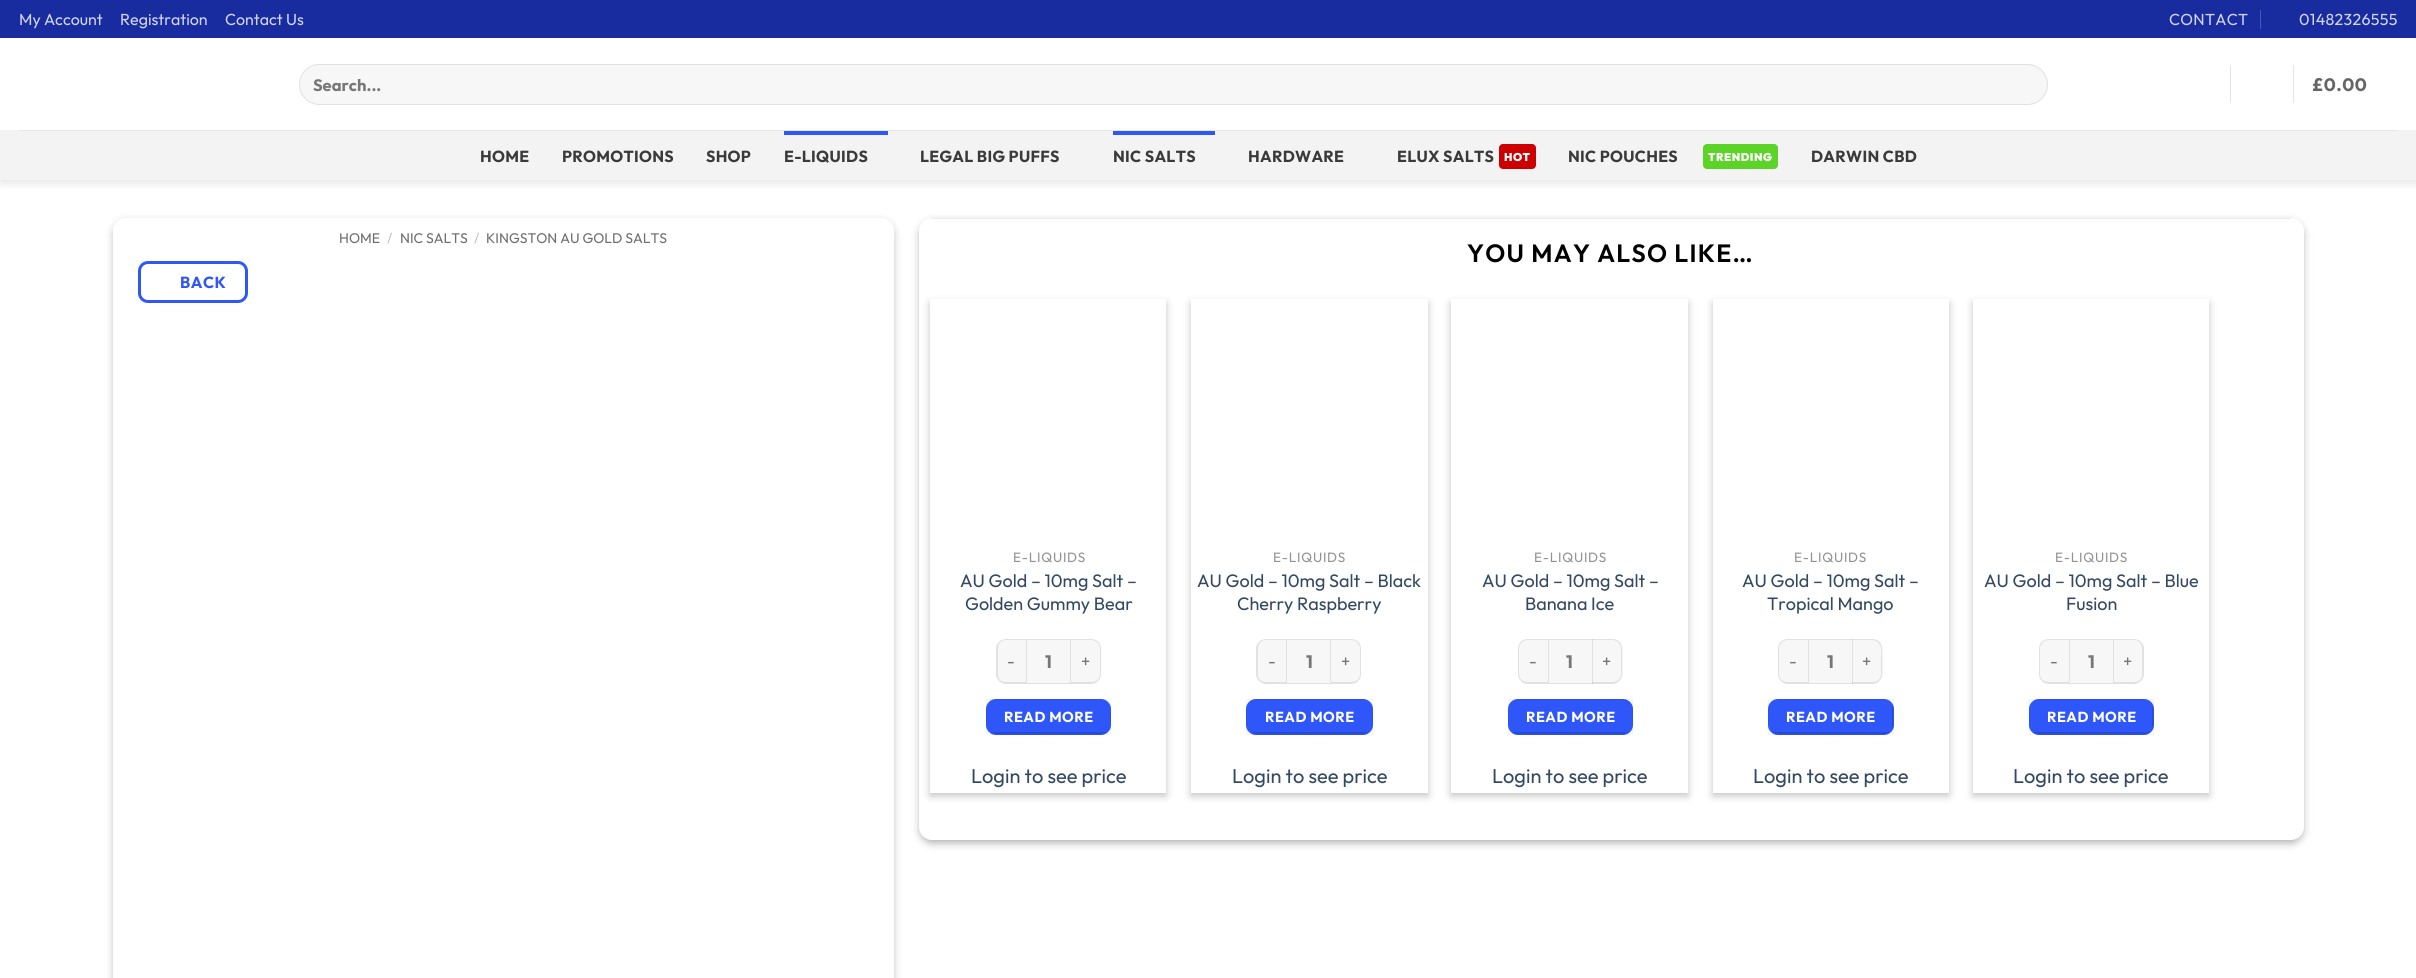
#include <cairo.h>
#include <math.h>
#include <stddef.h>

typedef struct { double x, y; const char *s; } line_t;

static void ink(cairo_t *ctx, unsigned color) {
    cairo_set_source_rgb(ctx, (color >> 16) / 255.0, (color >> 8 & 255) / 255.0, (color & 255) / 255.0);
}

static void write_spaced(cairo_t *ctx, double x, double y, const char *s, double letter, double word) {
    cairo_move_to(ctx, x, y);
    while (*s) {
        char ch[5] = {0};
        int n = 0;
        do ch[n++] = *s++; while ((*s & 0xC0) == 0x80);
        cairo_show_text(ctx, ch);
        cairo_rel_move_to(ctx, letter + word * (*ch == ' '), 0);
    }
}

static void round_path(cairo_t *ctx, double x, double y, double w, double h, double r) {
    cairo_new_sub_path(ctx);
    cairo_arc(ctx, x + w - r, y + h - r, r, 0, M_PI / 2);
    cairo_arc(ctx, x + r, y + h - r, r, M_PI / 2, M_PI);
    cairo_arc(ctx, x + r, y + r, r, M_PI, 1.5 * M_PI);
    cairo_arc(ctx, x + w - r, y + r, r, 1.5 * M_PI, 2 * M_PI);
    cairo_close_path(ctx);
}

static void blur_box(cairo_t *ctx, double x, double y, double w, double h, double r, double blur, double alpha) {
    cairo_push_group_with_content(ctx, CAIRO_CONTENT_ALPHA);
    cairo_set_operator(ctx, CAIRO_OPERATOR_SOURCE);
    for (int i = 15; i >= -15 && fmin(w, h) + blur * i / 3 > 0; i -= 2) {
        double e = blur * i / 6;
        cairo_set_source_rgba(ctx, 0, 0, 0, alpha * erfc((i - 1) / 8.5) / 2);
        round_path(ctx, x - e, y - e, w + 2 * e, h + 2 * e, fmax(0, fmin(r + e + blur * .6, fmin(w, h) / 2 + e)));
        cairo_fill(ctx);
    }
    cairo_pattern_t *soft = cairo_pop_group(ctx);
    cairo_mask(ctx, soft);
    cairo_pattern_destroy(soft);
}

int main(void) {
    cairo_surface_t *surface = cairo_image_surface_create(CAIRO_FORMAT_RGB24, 2416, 978);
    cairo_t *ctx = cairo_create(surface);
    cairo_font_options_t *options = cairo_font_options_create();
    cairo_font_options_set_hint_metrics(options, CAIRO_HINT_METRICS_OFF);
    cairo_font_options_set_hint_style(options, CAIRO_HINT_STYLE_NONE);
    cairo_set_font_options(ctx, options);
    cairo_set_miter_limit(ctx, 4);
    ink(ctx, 0xFFFFFF);
    cairo_paint(ctx);
    cairo_save(ctx);
    cairo_rectangle(ctx, 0, 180, 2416, 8);
    cairo_clip(ctx);
    ink(ctx, 0x000000);
    blur_box(ctx, 1, 1, 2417, 180, 0, 6, 0.15);
    cairo_restore(ctx);
    ink(ctx, 0x182CA0);
    cairo_rectangle(ctx, 0, 0, 2416, 38);
    cairo_fill(ctx);
    cairo_select_font_face(ctx, "Outfit", CAIRO_FONT_SLANT_NORMAL, CAIRO_FONT_WEIGHT_NORMAL);
    cairo_set_font_size(ctx, 16);
    ink(ctx, 0xD1D5EC);
    {
        static const line_t items[] = {
            {19, 25, "My Account"},
            {120, 25, "Registration"},
            {225, 25, "Contact Us"},
        };
        for (size_t i = 0; i < sizeof items / sizeof *items; i++) {
            cairo_move_to(ctx, items[i].x, items[i].y);
            cairo_show_text(ctx, items[i].s);
        }
    }
    write_spaced(ctx, 2169, 25, "CONTACT", 0.3, 0);
    ink(ctx, 0x4656B3);
    cairo_rectangle(ctx, 2260, 10, 1, 19);
    cairo_fill(ctx);
    ink(ctx, 0xD1D5EC);
    write_spaced(ctx, 2299, 25, "01482326555", 0.3, 0);
    ink(ctx, 0xF7F7F7);
    round_path(ctx, 299, 64, 1749, 41, 20.5);
    cairo_fill(ctx);
    round_path(ctx, 299.5, 64.5, 1748, 40, 20);
    cairo_set_source_rgba(ctx, 0, 0, 0, 0.09);
    cairo_set_line_width(ctx, 1);
    cairo_stroke(ctx);
    cairo_select_font_face(ctx, "Outfit", CAIRO_FONT_SLANT_NORMAL, CAIRO_FONT_WEIGHT_BOLD);
    cairo_set_font_size(ctx, 16.5);
    ink(ctx, 0x777777);
    cairo_move_to(ctx, 313, 91);
    cairo_show_text(ctx, "Search...");
    ink(ctx, 0xE6E6E6);
    cairo_rectangle(ctx, 2230, 65, 1, 38);
    cairo_fill(ctx);
    cairo_rectangle(ctx, 2293, 65, 1, 38);
    cairo_fill(ctx);
    cairo_set_font_size(ctx, 18);
    ink(ctx, 0x656565);
    write_spaced(ctx, 2312, 91, "£0.00", 0.5, 0);
    ink(ctx, 0xF3F3F3);
    cairo_rectangle(ctx, 0, 130, 2416, 50);
    cairo_fill(ctx);
    ink(ctx, 0xE7E7E7);
    cairo_rectangle(ctx, 19, 130, 2379, 1);
    cairo_fill(ctx);
    cairo_set_font_size(ctx, 16);
    ink(ctx, 0x3B3A3A);
    {
        static const line_t items[] = {
            {480, 162, "HOME"},
            {562, 162, "PROMOTIONS"},
            {706, 162, "SHOP"},
        };
        for (size_t i = 0; i < sizeof items / sizeof *items; i++) {
            write_spaced(ctx, items[i].x, items[i].y, items[i].s, 0.3, 0);
        }
    }
    ink(ctx, 0x2E56F9);
    cairo_rectangle(ctx, 784, 131, 104, 4);
    cairo_fill(ctx);
    ink(ctx, 0x3B3A3A);
    write_spaced(ctx, 784, 162, "E-LIQUIDS", 0.3, 0);
    write_spaced(ctx, 920, 162, "LEGAL BIG PUFFS", 0.3, 0);
    ink(ctx, 0x2E56F9);
    cairo_rectangle(ctx, 1113, 131, 102, 4);
    cairo_fill(ctx);
    ink(ctx, 0x3B3A3A);
    {
        static const line_t items[] = {
            {1113, 162, "NIC SALTS"},
            {1248, 162, "HARDWARE"},
            {1397, 162, "ELUX SALTS"},
        };
        for (size_t i = 0; i < sizeof items / sizeof *items; i++) {
            write_spaced(ctx, items[i].x, items[i].y, items[i].s, 0.3, 0);
        }
    }
    ink(ctx, 0xCC0000);
    round_path(ctx, 1499, 144, 37, 25, 4);
    cairo_fill(ctx);
    cairo_select_font_face(ctx, "Outfit Black", CAIRO_FONT_SLANT_NORMAL, CAIRO_FONT_WEIGHT_NORMAL);
    cairo_set_font_size(ctx, 11.25);
    ink(ctx, 0xFFFFFF);
    write_spaced(ctx, 1504, 161, "HOT", 0.5, 0);
    cairo_select_font_face(ctx, "Outfit", CAIRO_FONT_SLANT_NORMAL, CAIRO_FONT_WEIGHT_BOLD);
    cairo_set_font_size(ctx, 16);
    ink(ctx, 0x3B3A3A);
    write_spaced(ctx, 1568, 162, "NIC POUCHES", 0.3, 0);
    ink(ctx, 0x5BD427);
    round_path(ctx, 1703, 144, 75, 25, 4);
    cairo_fill(ctx);
    cairo_select_font_face(ctx, "Outfit Black", CAIRO_FONT_SLANT_NORMAL, CAIRO_FONT_WEIGHT_NORMAL);
    cairo_set_font_size(ctx, 11.25);
    ink(ctx, 0xFFFFFF);
    write_spaced(ctx, 1708, 161, "TRENDING", 0.5, 0);
    cairo_select_font_face(ctx, "Outfit", CAIRO_FONT_SLANT_NORMAL, CAIRO_FONT_WEIGHT_BOLD);
    cairo_set_font_size(ctx, 16);
    ink(ctx, 0x3B3A3A);
    write_spaced(ctx, 1811, 162, "DARWIN CBD", 0.3, 0);
    cairo_save(ctx);
    cairo_set_fill_rule(ctx, CAIRO_FILL_RULE_EVEN_ODD);
    cairo_new_path(ctx);
    cairo_move_to(ctx, 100, 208);
    cairo_line_to(ctx, 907, 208);
    cairo_line_to(ctx, 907, 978);
    cairo_line_to(ctx, 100, 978);
    cairo_close_path(ctx);
    cairo_move_to(ctx, 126, 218);
    cairo_line_to(ctx, 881, 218);
    cairo_curve_to(ctx, 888, 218, 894, 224, 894, 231);
    cairo_line_to(ctx, 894, 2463);
    cairo_curve_to(ctx, 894, 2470, 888, 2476, 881, 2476);
    cairo_line_to(ctx, 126, 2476);
    cairo_curve_to(ctx, 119, 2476, 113, 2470, 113, 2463);
    cairo_line_to(ctx, 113, 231);
    cairo_curve_to(ctx, 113, 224, 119, 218, 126, 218);
    cairo_close_path(ctx);
    cairo_clip(ctx);
    ink(ctx, 0x000000);
    blur_box(ctx, 113, 221, 781, 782, 13, 4, 0.23);
    cairo_restore(ctx);
    cairo_select_font_face(ctx, "Outfit", CAIRO_FONT_SLANT_NORMAL, CAIRO_FONT_WEIGHT_NORMAL);
    cairo_set_font_size(ctx, 14);
    ink(ctx, 0x6E6E6E);
    cairo_move_to(ctx, 339, 243);
    cairo_show_text(ctx, "HOME");
    cairo_select_font_face(ctx, "Outfit Light", CAIRO_FONT_SLANT_NORMAL, CAIRO_FONT_WEIGHT_NORMAL);
    ink(ctx, 0xB2B2B2);
    cairo_move_to(ctx, 387, 243);
    cairo_show_text(ctx, "/");
    cairo_select_font_face(ctx, "Outfit", CAIRO_FONT_SLANT_NORMAL, CAIRO_FONT_WEIGHT_NORMAL);
    ink(ctx, 0x6E6E6E);
    cairo_move_to(ctx, 400, 243);
    cairo_show_text(ctx, "NIC SALTS");
    cairo_select_font_face(ctx, "Outfit Light", CAIRO_FONT_SLANT_NORMAL, CAIRO_FONT_WEIGHT_NORMAL);
    ink(ctx, 0xB2B2B2);
    cairo_move_to(ctx, 474, 243);
    cairo_show_text(ctx, "/");
    cairo_select_font_face(ctx, "Outfit", CAIRO_FONT_SLANT_NORMAL, CAIRO_FONT_WEIGHT_NORMAL);
    ink(ctx, 0x6E6E6E);
    cairo_move_to(ctx, 486, 243);
    cairo_show_text(ctx, "KINGSTON AU GOLD SALTS");
    round_path(ctx, 139.5, 262.5, 107, 39, 8.5);
    ink(ctx, 0x2E56F9);
    cairo_set_line_width(ctx, 3);
    cairo_stroke(ctx);
    cairo_select_font_face(ctx, "Outfit", CAIRO_FONT_SLANT_NORMAL, CAIRO_FONT_WEIGHT_BOLD);
    cairo_set_font_size(ctx, 16);
    write_spaced(ctx, 180, 288, "BACK", 0.5, 0);
    ink(ctx, 0x000000);
    blur_box(ctx, 919, 221, 1385, 623, 13, 4, 0.23);
    blur_box(ctx, 924, 226, 1375, 613, 8, 4, 0.16);
    ink(ctx, 0xFFFFFF);
    round_path(ctx, 919, 218, 1385, 622, 13);
    cairo_fill(ctx);
    ink(ctx, 0xECECEC);
    cairo_rectangle(ctx, 931, 218, 1360, 1);
    cairo_fill(ctx);
    cairo_select_font_face(ctx, "Outfit SemiBold", CAIRO_FONT_SLANT_NORMAL, CAIRO_FONT_WEIGHT_NORMAL);
    cairo_set_font_size(ctx, 25);
    ink(ctx, 0x000000);
    write_spaced(ctx, 1467, 262, "YOU MAY ALSO LIKE…", 1.25, 0);
    cairo_save(ctx);
    cairo_set_fill_rule(ctx, CAIRO_FILL_RULE_EVEN_ODD);
    cairo_new_path(ctx);
    cairo_move_to(ctx, 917, 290);
    cairo_line_to(ctx, 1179, 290);
    cairo_line_to(ctx, 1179, 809);
    cairo_line_to(ctx, 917, 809);
    cairo_close_path(ctx);
    cairo_move_to(ctx, 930, 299);
    cairo_line_to(ctx, 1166, 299);
    cairo_line_to(ctx, 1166, 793);
    cairo_line_to(ctx, 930, 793);
    cairo_close_path(ctx);
    cairo_clip(ctx);
    ink(ctx, 0x000000);
    blur_box(ctx, 930, 303, 236, 493, 0, 4, 0.23);
    cairo_restore(ctx);
    cairo_select_font_face(ctx, "Outfit", CAIRO_FONT_SLANT_NORMAL, CAIRO_FONT_WEIGHT_NORMAL);
    cairo_set_font_size(ctx, 13.5);
    ink(ctx, 0x929292);
    write_spaced(ctx, 1013, 562, "E-LIQUIDS", 0.75, 0);
    cairo_set_font_size(ctx, 18);
    ink(ctx, 0x334862);
    cairo_move_to(ctx, 960, 587);
    cairo_show_text(ctx, "AU Gold – 10mg Salt –");
    cairo_move_to(ctx, 965, 610);
    cairo_show_text(ctx, "Golden Gummy Bear");
    ink(ctx, 0xF7F7F7);
    cairo_new_path(ctx);
    cairo_move_to(ctx, 1006, 639);
    cairo_line_to(ctx, 1026, 639);
    cairo_line_to(ctx, 1026, 684);
    cairo_line_to(ctx, 1006, 684);
    cairo_curve_to(ctx, 1000.5, 684, 996, 679.5, 996, 674);
    cairo_line_to(ctx, 996, 649);
    cairo_curve_to(ctx, 996, 643.5, 1000.5, 639, 1006, 639);
    cairo_close_path(ctx);
    cairo_fill(ctx);
    cairo_set_source_rgba(ctx, 0, 0, 0, 0.09);
    cairo_set_fill_rule(ctx, CAIRO_FILL_RULE_EVEN_ODD);
    cairo_new_path(ctx);
    cairo_move_to(ctx, 1006, 639);
    cairo_line_to(ctx, 1026, 639);
    cairo_line_to(ctx, 1026, 684);
    cairo_line_to(ctx, 1006, 684);
    cairo_curve_to(ctx, 1001, 684, 996, 679, 996, 674);
    cairo_line_to(ctx, 996, 649);
    cairo_curve_to(ctx, 996, 643, 1001, 639, 1006, 639);
    cairo_close_path(ctx);
    cairo_move_to(ctx, 1006, 640);
    cairo_line_to(ctx, 1026, 640);
    cairo_line_to(ctx, 1026, 682);
    cairo_line_to(ctx, 1006, 682);
    cairo_curve_to(ctx, 1001, 682, 998, 679, 998, 674);
    cairo_line_to(ctx, 998, 649);
    cairo_curve_to(ctx, 998, 644, 1001, 640, 1006, 640);
    cairo_close_path(ctx);
    cairo_fill(ctx);
    cairo_set_font_size(ctx, 17);
    ink(ctx, 0x777777);
    write_spaced(ctx, 1007, 667, "-", 1, 0);
    ink(ctx, 0xF7F7F7);
    cairo_rectangle(ctx, 1026.5, 639.5, 44, 44);
    cairo_fill_preserve(ctx);
    ink(ctx, 0xE1E1E1);
    cairo_set_line_width(ctx, 1);
    cairo_stroke(ctx);
    cairo_select_font_face(ctx, "Outfit", CAIRO_FONT_SLANT_NORMAL, CAIRO_FONT_WEIGHT_BOLD);
    cairo_set_font_size(ctx, 18);
    ink(ctx, 0x777777);
    cairo_move_to(ctx, 1045, 668);
    cairo_show_text(ctx, "1");
    ink(ctx, 0xF7F7F7);
    cairo_new_path(ctx);
    cairo_move_to(ctx, 1071, 639);
    cairo_line_to(ctx, 1091, 639);
    cairo_curve_to(ctx, 1096.5, 639, 1101, 643.5, 1101, 649);
    cairo_line_to(ctx, 1101, 674);
    cairo_curve_to(ctx, 1101, 679.5, 1096.5, 684, 1091, 684);
    cairo_line_to(ctx, 1071, 684);
    cairo_close_path(ctx);
    cairo_fill(ctx);
    cairo_set_source_rgba(ctx, 0, 0, 0, 0.09);
    cairo_new_path(ctx);
    cairo_move_to(ctx, 1071, 639);
    cairo_line_to(ctx, 1091, 639);
    cairo_curve_to(ctx, 1097, 639, 1101, 643, 1101, 649);
    cairo_line_to(ctx, 1101, 674);
    cairo_curve_to(ctx, 1101, 679, 1097, 684, 1091, 684);
    cairo_line_to(ctx, 1071, 684);
    cairo_close_path(ctx);
    cairo_move_to(ctx, 1071, 640);
    cairo_line_to(ctx, 1091, 640);
    cairo_curve_to(ctx, 1096, 640, 1100, 644, 1100, 649);
    cairo_line_to(ctx, 1100, 674);
    cairo_curve_to(ctx, 1100, 679, 1096, 682, 1091, 682);
    cairo_line_to(ctx, 1071, 682);
    cairo_close_path(ctx);
    cairo_fill(ctx);
    cairo_select_font_face(ctx, "Outfit", CAIRO_FONT_SLANT_NORMAL, CAIRO_FONT_WEIGHT_NORMAL);
    cairo_set_font_size(ctx, 17);
    ink(ctx, 0x777777);
    write_spaced(ctx, 1081, 667, "+", 1, 0);
    ink(ctx, 0x2E56F9);
    round_path(ctx, 986, 699, 125, 36, 10);
    cairo_fill(ctx);
    cairo_rectangle(ctx, 986.5, 699.5, 124, 35);
    cairo_set_source_rgba(ctx, 0, 0, 0, 0.05);
    cairo_stroke(ctx);
    cairo_select_font_face(ctx, "Outfit", CAIRO_FONT_SLANT_NORMAL, CAIRO_FONT_WEIGHT_BOLD);
    cairo_set_font_size(ctx, 14.5);
    ink(ctx, 0xFFFFFF);
    write_spaced(ctx, 1004, 722, "READ MORE", 0.5, 0);
    cairo_set_source_rgba(ctx, 0, 0, 0, 0.15);
    cairo_set_fill_rule(ctx, CAIRO_FILL_RULE_WINDING);
    cairo_new_path(ctx);
    cairo_move_to(ctx, 991, 732);
    cairo_curve_to(ctx, 993, 733, 995, 734, 997, 734);
    cairo_line_to(ctx, 1101, 734);
    cairo_curve_to(ctx, 1103, 734, 1105, 733, 1107, 732);
    cairo_close_path(ctx);
    cairo_fill(ctx);
    cairo_select_font_face(ctx, "Outfit", CAIRO_FONT_SLANT_NORMAL, CAIRO_FONT_WEIGHT_NORMAL);
    cairo_set_font_size(ctx, 20);
    ink(ctx, 0x334862);
    cairo_move_to(ctx, 971, 783);
    cairo_show_text(ctx, "Login to see price");
    cairo_save(ctx);
    cairo_set_fill_rule(ctx, CAIRO_FILL_RULE_EVEN_ODD);
    cairo_new_path(ctx);
    cairo_move_to(ctx, 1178, 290);
    cairo_line_to(ctx, 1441, 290);
    cairo_line_to(ctx, 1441, 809);
    cairo_line_to(ctx, 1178, 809);
    cairo_close_path(ctx);
    cairo_move_to(ctx, 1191, 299);
    cairo_line_to(ctx, 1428, 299);
    cairo_line_to(ctx, 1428, 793);
    cairo_line_to(ctx, 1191, 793);
    cairo_close_path(ctx);
    cairo_clip(ctx);
    ink(ctx, 0x000000);
    blur_box(ctx, 1191, 303, 237, 493, 0, 4, 0.23);
    cairo_restore(ctx);
    cairo_set_font_size(ctx, 13.5);
    ink(ctx, 0x929292);
    write_spaced(ctx, 1273, 562, "E-LIQUIDS", 0.75, 0);
    cairo_set_font_size(ctx, 18);
    ink(ctx, 0x334862);
    cairo_move_to(ctx, 1197, 587);
    cairo_show_text(ctx, "AU Gold – 10mg Salt – Black");
    cairo_move_to(ctx, 1237, 610);
    cairo_show_text(ctx, "Cherry Raspberry");
    ink(ctx, 0xF7F7F7);
    cairo_new_path(ctx);
    cairo_move_to(ctx, 1266, 639);
    cairo_line_to(ctx, 1286, 639);
    cairo_line_to(ctx, 1286, 684);
    cairo_line_to(ctx, 1266, 684);
    cairo_curve_to(ctx, 1260.5, 684, 1256, 679.5, 1256, 674);
    cairo_line_to(ctx, 1256, 649);
    cairo_curve_to(ctx, 1256, 643.5, 1260.5, 639, 1266, 639);
    cairo_close_path(ctx);
    cairo_fill(ctx);
    cairo_set_source_rgba(ctx, 0, 0, 0, 0.09);
    cairo_set_fill_rule(ctx, CAIRO_FILL_RULE_EVEN_ODD);
    cairo_new_path(ctx);
    cairo_move_to(ctx, 1266, 639);
    cairo_line_to(ctx, 1286, 639);
    cairo_line_to(ctx, 1286, 684);
    cairo_line_to(ctx, 1266, 684);
    cairo_curve_to(ctx, 1261, 684, 1256, 679, 1256, 674);
    cairo_line_to(ctx, 1256, 649);
    cairo_curve_to(ctx, 1256, 643, 1261, 639, 1266, 639);
    cairo_close_path(ctx);
    cairo_move_to(ctx, 1266, 640);
    cairo_line_to(ctx, 1286, 640);
    cairo_line_to(ctx, 1286, 682);
    cairo_line_to(ctx, 1266, 682);
    cairo_curve_to(ctx, 1261, 682, 1258, 679, 1258, 674);
    cairo_line_to(ctx, 1258, 649);
    cairo_curve_to(ctx, 1258, 644, 1261, 640, 1266, 640);
    cairo_close_path(ctx);
    cairo_fill(ctx);
    cairo_set_font_size(ctx, 17);
    ink(ctx, 0x777777);
    write_spaced(ctx, 1268, 667, "-", 1, 0);
    ink(ctx, 0xF7F7F7);
    cairo_rectangle(ctx, 1286.5, 639.5, 44, 44);
    cairo_fill_preserve(ctx);
    ink(ctx, 0xE1E1E1);
    cairo_stroke(ctx);
    cairo_select_font_face(ctx, "Outfit", CAIRO_FONT_SLANT_NORMAL, CAIRO_FONT_WEIGHT_BOLD);
    cairo_set_font_size(ctx, 18);
    ink(ctx, 0x777777);
    cairo_move_to(ctx, 1306, 668);
    cairo_show_text(ctx, "1");
    ink(ctx, 0xF7F7F7);
    cairo_new_path(ctx);
    cairo_move_to(ctx, 1331, 639);
    cairo_line_to(ctx, 1351, 639);
    cairo_curve_to(ctx, 1356.5, 639, 1361, 643.5, 1361, 649);
    cairo_line_to(ctx, 1361, 674);
    cairo_curve_to(ctx, 1361, 679.5, 1356.5, 684, 1351, 684);
    cairo_line_to(ctx, 1331, 684);
    cairo_close_path(ctx);
    cairo_fill(ctx);
    cairo_set_source_rgba(ctx, 0, 0, 0, 0.09);
    cairo_new_path(ctx);
    cairo_move_to(ctx, 1331, 639);
    cairo_line_to(ctx, 1351, 639);
    cairo_curve_to(ctx, 1357, 639, 1361, 643, 1361, 649);
    cairo_line_to(ctx, 1361, 674);
    cairo_curve_to(ctx, 1361, 679, 1357, 684, 1351, 684);
    cairo_line_to(ctx, 1331, 684);
    cairo_close_path(ctx);
    cairo_move_to(ctx, 1331, 640);
    cairo_line_to(ctx, 1351, 640);
    cairo_curve_to(ctx, 1356, 640, 1360, 644, 1360, 649);
    cairo_line_to(ctx, 1360, 674);
    cairo_curve_to(ctx, 1360, 679, 1356, 682, 1351, 682);
    cairo_line_to(ctx, 1331, 682);
    cairo_close_path(ctx);
    cairo_fill(ctx);
    cairo_select_font_face(ctx, "Outfit", CAIRO_FONT_SLANT_NORMAL, CAIRO_FONT_WEIGHT_NORMAL);
    cairo_set_font_size(ctx, 17);
    ink(ctx, 0x777777);
    write_spaced(ctx, 1341, 667, "+", 1, 0);
    ink(ctx, 0x2E56F9);
    round_path(ctx, 1246, 699, 127, 36, 10);
    cairo_fill(ctx);
    cairo_rectangle(ctx, 1246.5, 699.5, 126, 35);
    cairo_set_source_rgba(ctx, 0, 0, 0, 0.05);
    cairo_stroke(ctx);
    cairo_select_font_face(ctx, "Outfit", CAIRO_FONT_SLANT_NORMAL, CAIRO_FONT_WEIGHT_BOLD);
    cairo_set_font_size(ctx, 14.5);
    ink(ctx, 0xFFFFFF);
    write_spaced(ctx, 1265, 722, "READ MORE", 0.5, 0);
    ink(ctx, 0x2749D4);
    cairo_set_fill_rule(ctx, CAIRO_FILL_RULE_WINDING);
    cairo_new_path(ctx);
    cairo_move_to(ctx, 1251, 732);
    cairo_curve_to(ctx, 1253, 733, 1255, 734, 1257, 734);
    cairo_line_to(ctx, 1362, 734);
    cairo_curve_to(ctx, 1364, 734, 1366, 733, 1368, 732);
    cairo_close_path(ctx);
    cairo_fill(ctx);
    cairo_select_font_face(ctx, "Outfit", CAIRO_FONT_SLANT_NORMAL, CAIRO_FONT_WEIGHT_NORMAL);
    cairo_set_font_size(ctx, 20);
    ink(ctx, 0x334862);
    cairo_move_to(ctx, 1232, 783);
    cairo_show_text(ctx, "Login to see price");
    cairo_save(ctx);
    cairo_set_fill_rule(ctx, CAIRO_FILL_RULE_EVEN_ODD);
    cairo_new_path(ctx);
    cairo_move_to(ctx, 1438, 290);
    cairo_line_to(ctx, 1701, 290);
    cairo_line_to(ctx, 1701, 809);
    cairo_line_to(ctx, 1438, 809);
    cairo_close_path(ctx);
    cairo_move_to(ctx, 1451, 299);
    cairo_line_to(ctx, 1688, 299);
    cairo_line_to(ctx, 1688, 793);
    cairo_line_to(ctx, 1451, 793);
    cairo_close_path(ctx);
    cairo_clip(ctx);
    ink(ctx, 0x000000);
    blur_box(ctx, 1451, 303, 237, 493, 0, 4, 0.23);
    cairo_restore(ctx);
    cairo_set_font_size(ctx, 13.5);
    ink(ctx, 0x929292);
    write_spaced(ctx, 1534, 562, "E-LIQUIDS", 0.75, 0);
    cairo_set_font_size(ctx, 18);
    ink(ctx, 0x334862);
    cairo_move_to(ctx, 1482, 587);
    cairo_show_text(ctx, "AU Gold – 10mg Salt –");
    cairo_move_to(ctx, 1525, 610);
    cairo_show_text(ctx, "Banana Ice");
    ink(ctx, 0xF7F7F7);
    cairo_new_path(ctx);
    cairo_move_to(ctx, 1528, 639);
    cairo_line_to(ctx, 1548, 639);
    cairo_line_to(ctx, 1548, 684);
    cairo_line_to(ctx, 1528, 684);
    cairo_curve_to(ctx, 1522.5, 684, 1518, 679.5, 1518, 674);
    cairo_line_to(ctx, 1518, 649);
    cairo_curve_to(ctx, 1518, 643.5, 1522.5, 639, 1528, 639);
    cairo_close_path(ctx);
    cairo_fill(ctx);
    cairo_set_source_rgba(ctx, 0, 0, 0, 0.09);
    cairo_set_fill_rule(ctx, CAIRO_FILL_RULE_EVEN_ODD);
    cairo_new_path(ctx);
    cairo_move_to(ctx, 1528, 639);
    cairo_line_to(ctx, 1548, 639);
    cairo_line_to(ctx, 1548, 684);
    cairo_line_to(ctx, 1528, 684);
    cairo_curve_to(ctx, 1522, 684, 1518, 679, 1518, 674);
    cairo_line_to(ctx, 1518, 649);
    cairo_curve_to(ctx, 1518, 643, 1522, 639, 1528, 639);
    cairo_close_path(ctx);
    cairo_move_to(ctx, 1528, 640);
    cairo_line_to(ctx, 1548, 640);
    cairo_line_to(ctx, 1548, 682);
    cairo_line_to(ctx, 1528, 682);
    cairo_curve_to(ctx, 1523, 682, 1519, 679, 1519, 674);
    cairo_line_to(ctx, 1519, 649);
    cairo_curve_to(ctx, 1519, 644, 1523, 640, 1528, 640);
    cairo_close_path(ctx);
    cairo_fill(ctx);
    cairo_set_font_size(ctx, 17);
    ink(ctx, 0x777777);
    write_spaced(ctx, 1529, 667, "-", 1, 0);
    ink(ctx, 0xF7F7F7);
    cairo_rectangle(ctx, 1548.5, 639.5, 44, 44);
    cairo_fill_preserve(ctx);
    ink(ctx, 0xE1E1E1);
    cairo_stroke(ctx);
    cairo_select_font_face(ctx, "Outfit", CAIRO_FONT_SLANT_NORMAL, CAIRO_FONT_WEIGHT_BOLD);
    cairo_set_font_size(ctx, 18);
    ink(ctx, 0x777777);
    cairo_move_to(ctx, 1566, 668);
    cairo_show_text(ctx, "1");
    ink(ctx, 0xF7F7F7);
    cairo_new_path(ctx);
    cairo_move_to(ctx, 1593, 639);
    cairo_line_to(ctx, 1613, 639);
    cairo_curve_to(ctx, 1618.5, 639, 1623, 643.5, 1623, 649);
    cairo_line_to(ctx, 1623, 674);
    cairo_curve_to(ctx, 1623, 679.5, 1618.5, 684, 1613, 684);
    cairo_line_to(ctx, 1593, 684);
    cairo_close_path(ctx);
    cairo_fill(ctx);
    cairo_set_source_rgba(ctx, 0, 0, 0, 0.09);
    cairo_new_path(ctx);
    cairo_move_to(ctx, 1592, 639);
    cairo_line_to(ctx, 1612, 639);
    cairo_curve_to(ctx, 1618, 639, 1622, 643, 1622, 649);
    cairo_line_to(ctx, 1622, 674);
    cairo_curve_to(ctx, 1622, 679, 1618, 684, 1612, 684);
    cairo_line_to(ctx, 1592, 684);
    cairo_close_path(ctx);
    cairo_move_to(ctx, 1592, 640);
    cairo_line_to(ctx, 1612, 640);
    cairo_curve_to(ctx, 1617, 640, 1621, 644, 1621, 649);
    cairo_line_to(ctx, 1621, 674);
    cairo_curve_to(ctx, 1621, 679, 1617, 682, 1612, 682);
    cairo_line_to(ctx, 1592, 682);
    cairo_close_path(ctx);
    cairo_fill(ctx);
    cairo_select_font_face(ctx, "Outfit", CAIRO_FONT_SLANT_NORMAL, CAIRO_FONT_WEIGHT_NORMAL);
    cairo_set_font_size(ctx, 17);
    ink(ctx, 0x777777);
    write_spaced(ctx, 1602, 667, "+", 1, 0);
    ink(ctx, 0x2E56F9);
    round_path(ctx, 1508, 699, 125, 36, 10);
    cairo_fill(ctx);
    cairo_rectangle(ctx, 1508.5, 699.5, 124, 35);
    cairo_set_source_rgba(ctx, 0, 0, 0, 0.05);
    cairo_stroke(ctx);
    cairo_select_font_face(ctx, "Outfit", CAIRO_FONT_SLANT_NORMAL, CAIRO_FONT_WEIGHT_BOLD);
    cairo_set_font_size(ctx, 14.5);
    ink(ctx, 0xFFFFFF);
    write_spaced(ctx, 1526, 722, "READ MORE", 0.5, 0);
    cairo_set_source_rgba(ctx, 0, 0, 0, 0.15);
    cairo_set_fill_rule(ctx, CAIRO_FILL_RULE_WINDING);
    cairo_new_path(ctx);
    cairo_move_to(ctx, 1512, 732);
    cairo_curve_to(ctx, 1514, 733, 1516, 734, 1518, 734);
    cairo_line_to(ctx, 1622, 734);
    cairo_curve_to(ctx, 1624, 734, 1626, 733, 1628, 732);
    cairo_close_path(ctx);
    cairo_fill(ctx);
    cairo_select_font_face(ctx, "Outfit", CAIRO_FONT_SLANT_NORMAL, CAIRO_FONT_WEIGHT_NORMAL);
    cairo_set_font_size(ctx, 20);
    ink(ctx, 0x334862);
    cairo_move_to(ctx, 1492, 783);
    cairo_show_text(ctx, "Login to see price");
    cairo_save(ctx);
    cairo_set_fill_rule(ctx, CAIRO_FILL_RULE_EVEN_ODD);
    cairo_new_path(ctx);
    cairo_move_to(ctx, 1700, 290);
    cairo_line_to(ctx, 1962, 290);
    cairo_line_to(ctx, 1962, 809);
    cairo_line_to(ctx, 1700, 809);
    cairo_close_path(ctx);
    cairo_move_to(ctx, 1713, 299);
    cairo_line_to(ctx, 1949, 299);
    cairo_line_to(ctx, 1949, 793);
    cairo_line_to(ctx, 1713, 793);
    cairo_close_path(ctx);
    cairo_clip(ctx);
    ink(ctx, 0x000000);
    blur_box(ctx, 1713, 303, 236, 493, 0, 4, 0.23);
    cairo_restore(ctx);
    cairo_set_font_size(ctx, 13.5);
    ink(ctx, 0x929292);
    write_spaced(ctx, 1794, 562, "E-LIQUIDS", 0.75, 0);
    cairo_set_font_size(ctx, 18);
    ink(ctx, 0x334862);
    cairo_move_to(ctx, 1742, 587);
    cairo_show_text(ctx, "AU Gold – 10mg Salt –");
    cairo_move_to(ctx, 1767, 610);
    cairo_show_text(ctx, "Tropical Mango");
    ink(ctx, 0xF7F7F7);
    cairo_new_path(ctx);
    cairo_move_to(ctx, 1788, 639);
    cairo_line_to(ctx, 1808, 639);
    cairo_line_to(ctx, 1808, 684);
    cairo_line_to(ctx, 1788, 684);
    cairo_curve_to(ctx, 1782.5, 684, 1778, 679.5, 1778, 674);
    cairo_line_to(ctx, 1778, 649);
    cairo_curve_to(ctx, 1778, 643.5, 1782.5, 639, 1788, 639);
    cairo_close_path(ctx);
    cairo_fill(ctx);
    cairo_set_source_rgba(ctx, 0, 0, 0, 0.09);
    cairo_set_fill_rule(ctx, CAIRO_FILL_RULE_EVEN_ODD);
    cairo_new_path(ctx);
    cairo_move_to(ctx, 1788, 639);
    cairo_line_to(ctx, 1808, 639);
    cairo_line_to(ctx, 1808, 684);
    cairo_line_to(ctx, 1788, 684);
    cairo_curve_to(ctx, 1782, 684, 1778, 679, 1778, 674);
    cairo_line_to(ctx, 1778, 649);
    cairo_curve_to(ctx, 1778, 643, 1782, 639, 1788, 639);
    cairo_close_path(ctx);
    cairo_move_to(ctx, 1788, 640);
    cairo_line_to(ctx, 1808, 640);
    cairo_line_to(ctx, 1808, 682);
    cairo_line_to(ctx, 1788, 682);
    cairo_curve_to(ctx, 1783, 682, 1779, 679, 1779, 674);
    cairo_line_to(ctx, 1779, 649);
    cairo_curve_to(ctx, 1779, 644, 1783, 640, 1788, 640);
    cairo_close_path(ctx);
    cairo_fill(ctx);
    cairo_set_font_size(ctx, 17);
    ink(ctx, 0x777777);
    write_spaced(ctx, 1789, 667, "-", 1, 0);
    ink(ctx, 0xF7F7F7);
    cairo_rectangle(ctx, 1808.5, 639.5, 44, 44);
    cairo_fill_preserve(ctx);
    ink(ctx, 0xE1E1E1);
    cairo_stroke(ctx);
    cairo_select_font_face(ctx, "Outfit", CAIRO_FONT_SLANT_NORMAL, CAIRO_FONT_WEIGHT_BOLD);
    cairo_set_font_size(ctx, 18);
    ink(ctx, 0x777777);
    cairo_move_to(ctx, 1827, 668);
    cairo_show_text(ctx, "1");
    ink(ctx, 0xF7F7F7);
    cairo_new_path(ctx);
    cairo_move_to(ctx, 1853, 639);
    cairo_line_to(ctx, 1873, 639);
    cairo_curve_to(ctx, 1878.5, 639, 1883, 643.5, 1883, 649);
    cairo_line_to(ctx, 1883, 674);
    cairo_curve_to(ctx, 1883, 679.5, 1878.5, 684, 1873, 684);
    cairo_line_to(ctx, 1853, 684);
    cairo_close_path(ctx);
    cairo_fill(ctx);
    cairo_set_source_rgba(ctx, 0, 0, 0, 0.09);
    cairo_new_path(ctx);
    cairo_move_to(ctx, 1852, 639);
    cairo_line_to(ctx, 1872, 639);
    cairo_curve_to(ctx, 1878, 639, 1882, 643, 1882, 649);
    cairo_line_to(ctx, 1882, 674);
    cairo_curve_to(ctx, 1882, 679, 1878, 684, 1872, 684);
    cairo_line_to(ctx, 1852, 684);
    cairo_close_path(ctx);
    cairo_move_to(ctx, 1852, 640);
    cairo_line_to(ctx, 1872, 640);
    cairo_curve_to(ctx, 1877, 640, 1881, 644, 1881, 649);
    cairo_line_to(ctx, 1881, 674);
    cairo_curve_to(ctx, 1881, 679, 1877, 682, 1872, 682);
    cairo_line_to(ctx, 1852, 682);
    cairo_close_path(ctx);
    cairo_fill(ctx);
    cairo_select_font_face(ctx, "Outfit", CAIRO_FONT_SLANT_NORMAL, CAIRO_FONT_WEIGHT_NORMAL);
    cairo_set_font_size(ctx, 17);
    ink(ctx, 0x777777);
    write_spaced(ctx, 1862, 667, "+", 1, 0);
    ink(ctx, 0x2E56F9);
    round_path(ctx, 1768, 699, 126, 36, 10);
    cairo_fill(ctx);
    cairo_rectangle(ctx, 1768.5, 699.5, 125, 35);
    cairo_set_source_rgba(ctx, 0, 0, 0, 0.05);
    cairo_stroke(ctx);
    cairo_select_font_face(ctx, "Outfit", CAIRO_FONT_SLANT_NORMAL, CAIRO_FONT_WEIGHT_BOLD);
    cairo_set_font_size(ctx, 14.5);
    ink(ctx, 0xFFFFFF);
    write_spaced(ctx, 1786, 722, "READ MORE", 0.5, 0);
    cairo_save(ctx);
    cairo_set_fill_rule(ctx, CAIRO_FILL_RULE_WINDING);
    cairo_rectangle(ctx, 1769, 700, 124, 34);
    cairo_clip(ctx);
    cairo_set_source_rgba(ctx, 0, 0, 0, 0.15);
    cairo_set_fill_rule(ctx, CAIRO_FILL_RULE_EVEN_ODD);
    cairo_new_path(ctx);
    cairo_move_to(ctx, 1772, 732);
    cairo_curve_to(ctx, 1774, 733, 1776, 734, 1778, 734);
    cairo_line_to(ctx, 1884, 734);
    cairo_curve_to(ctx, 1886, 734, 1888, 733, 1890, 732);
    cairo_close_path(ctx);
    cairo_move_to(ctx, 1892, 729);
    cairo_curve_to(ctx, 1894, 726, 1894, 708, 1892, 705);
    cairo_close_path(ctx);
    cairo_fill(ctx);
    cairo_restore(ctx);
    cairo_select_font_face(ctx, "Outfit", CAIRO_FONT_SLANT_NORMAL, CAIRO_FONT_WEIGHT_NORMAL);
    cairo_set_font_size(ctx, 20);
    ink(ctx, 0x334862);
    cairo_move_to(ctx, 1753, 783);
    cairo_show_text(ctx, "Login to see price");
    cairo_save(ctx);
    cairo_new_path(ctx);
    cairo_move_to(ctx, 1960, 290);
    cairo_line_to(ctx, 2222, 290);
    cairo_line_to(ctx, 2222, 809);
    cairo_line_to(ctx, 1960, 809);
    cairo_close_path(ctx);
    cairo_move_to(ctx, 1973, 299);
    cairo_line_to(ctx, 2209, 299);
    cairo_line_to(ctx, 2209, 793);
    cairo_line_to(ctx, 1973, 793);
    cairo_close_path(ctx);
    cairo_clip(ctx);
    ink(ctx, 0x000000);
    blur_box(ctx, 1973, 303, 236, 493, 0, 4, 0.23);
    cairo_restore(ctx);
    cairo_set_font_size(ctx, 13.5);
    ink(ctx, 0x929292);
    write_spaced(ctx, 2055, 562, "E-LIQUIDS", 0.75, 0);
    cairo_set_font_size(ctx, 18);
    ink(ctx, 0x334862);
    cairo_move_to(ctx, 1984, 587);
    cairo_show_text(ctx, "AU Gold – 10mg Salt – Blue");
    cairo_move_to(ctx, 2066, 610);
    cairo_show_text(ctx, "Fusion");
    ink(ctx, 0xF7F7F7);
    cairo_new_path(ctx);
    cairo_move_to(ctx, 2049, 639);
    cairo_line_to(ctx, 2069, 639);
    cairo_line_to(ctx, 2069, 684);
    cairo_line_to(ctx, 2049, 684);
    cairo_curve_to(ctx, 2043.5, 684, 2039, 679.5, 2039, 674);
    cairo_line_to(ctx, 2039, 649);
    cairo_curve_to(ctx, 2039, 643.5, 2043.5, 639, 2049, 639);
    cairo_close_path(ctx);
    cairo_fill(ctx);
    cairo_set_source_rgba(ctx, 0, 0, 0, 0.09);
    cairo_new_path(ctx);
    cairo_move_to(ctx, 2049, 639);
    cairo_line_to(ctx, 2069, 639);
    cairo_line_to(ctx, 2069, 684);
    cairo_line_to(ctx, 2049, 684);
    cairo_curve_to(ctx, 2043, 684, 2039, 679, 2039, 674);
    cairo_line_to(ctx, 2039, 649);
    cairo_curve_to(ctx, 2039, 643, 2043, 639, 2049, 639);
    cairo_close_path(ctx);
    cairo_move_to(ctx, 2049, 640);
    cairo_line_to(ctx, 2069, 640);
    cairo_line_to(ctx, 2069, 682);
    cairo_line_to(ctx, 2049, 682);
    cairo_curve_to(ctx, 2044, 682, 2040, 679, 2040, 674);
    cairo_line_to(ctx, 2040, 649);
    cairo_curve_to(ctx, 2040, 644, 2044, 640, 2049, 640);
    cairo_close_path(ctx);
    cairo_fill(ctx);
    cairo_set_font_size(ctx, 17);
    ink(ctx, 0x777777);
    write_spaced(ctx, 2050, 667, "-", 1, 0);
    ink(ctx, 0xF7F7F7);
    cairo_rectangle(ctx, 2069.5, 639.5, 44, 44);
    cairo_fill_preserve(ctx);
    ink(ctx, 0xE1E1E1);
    cairo_stroke(ctx);
    cairo_select_font_face(ctx, "Outfit", CAIRO_FONT_SLANT_NORMAL, CAIRO_FONT_WEIGHT_BOLD);
    cairo_set_font_size(ctx, 18);
    ink(ctx, 0x777777);
    cairo_move_to(ctx, 2088, 668);
    cairo_show_text(ctx, "1");
    ink(ctx, 0xF7F7F7);
    cairo_new_path(ctx);
    cairo_move_to(ctx, 2114, 639);
    cairo_line_to(ctx, 2134, 639);
    cairo_curve_to(ctx, 2139.5, 639, 2144, 643.5, 2144, 649);
    cairo_line_to(ctx, 2144, 674);
    cairo_curve_to(ctx, 2144, 679.5, 2139.5, 684, 2134, 684);
    cairo_line_to(ctx, 2114, 684);
    cairo_close_path(ctx);
    cairo_fill(ctx);
    cairo_set_source_rgba(ctx, 0, 0, 0, 0.09);
    cairo_new_path(ctx);
    cairo_move_to(ctx, 2114, 639);
    cairo_line_to(ctx, 2134, 639);
    cairo_curve_to(ctx, 2139, 639, 2144, 643, 2144, 649);
    cairo_line_to(ctx, 2144, 674);
    cairo_curve_to(ctx, 2144, 679, 2139, 684, 2134, 684);
    cairo_line_to(ctx, 2114, 684);
    cairo_close_path(ctx);
    cairo_move_to(ctx, 2114, 640);
    cairo_line_to(ctx, 2134, 640);
    cairo_curve_to(ctx, 2139, 640, 2142, 644, 2142, 649);
    cairo_line_to(ctx, 2142, 674);
    cairo_curve_to(ctx, 2142, 679, 2139, 682, 2134, 682);
    cairo_line_to(ctx, 2114, 682);
    cairo_close_path(ctx);
    cairo_fill(ctx);
    cairo_select_font_face(ctx, "Outfit", CAIRO_FONT_SLANT_NORMAL, CAIRO_FONT_WEIGHT_NORMAL);
    cairo_set_font_size(ctx, 17);
    ink(ctx, 0x777777);
    write_spaced(ctx, 2123, 667, "+", 1, 0);
    ink(ctx, 0x2E56F9);
    round_path(ctx, 2029, 699, 125, 36, 10);
    cairo_fill(ctx);
    cairo_rectangle(ctx, 2029.5, 699.5, 124, 35);
    cairo_set_source_rgba(ctx, 0, 0, 0, 0.05);
    cairo_stroke(ctx);
    cairo_select_font_face(ctx, "Outfit", CAIRO_FONT_SLANT_NORMAL, CAIRO_FONT_WEIGHT_BOLD);
    cairo_set_font_size(ctx, 14.5);
    ink(ctx, 0xFFFFFF);
    write_spaced(ctx, 2047, 722, "READ MORE", 0.5, 0);
    cairo_save(ctx);
    cairo_set_fill_rule(ctx, CAIRO_FILL_RULE_WINDING);
    cairo_rectangle(ctx, 2030, 700, 123, 34);
    cairo_clip(ctx);
    cairo_set_source_rgba(ctx, 0, 0, 0, 0.15);
    cairo_set_fill_rule(ctx, CAIRO_FILL_RULE_EVEN_ODD);
    cairo_new_path(ctx);
    cairo_move_to(ctx, 2033, 732);
    cairo_curve_to(ctx, 2035, 733, 2037, 734, 2039, 734);
    cairo_line_to(ctx, 2144, 734);
    cairo_curve_to(ctx, 2146, 734, 2148, 733, 2150, 732);
    cairo_close_path(ctx);
    cairo_move_to(ctx, 2152, 729);
    cairo_curve_to(ctx, 2154, 726, 2154, 708, 2152, 705);
    cairo_close_path(ctx);
    cairo_fill(ctx);
    cairo_restore(ctx);
    cairo_select_font_face(ctx, "Outfit", CAIRO_FONT_SLANT_NORMAL, CAIRO_FONT_WEIGHT_NORMAL);
    cairo_set_font_size(ctx, 20);
    ink(ctx, 0x334862);
    cairo_move_to(ctx, 2013, 783);
    cairo_show_text(ctx, "Login to see price");
    cairo_surface_write_to_png(surface, "image.png");
    cairo_font_options_destroy(options);
    cairo_destroy(ctx);
    cairo_surface_destroy(surface);
    return 0;
}
